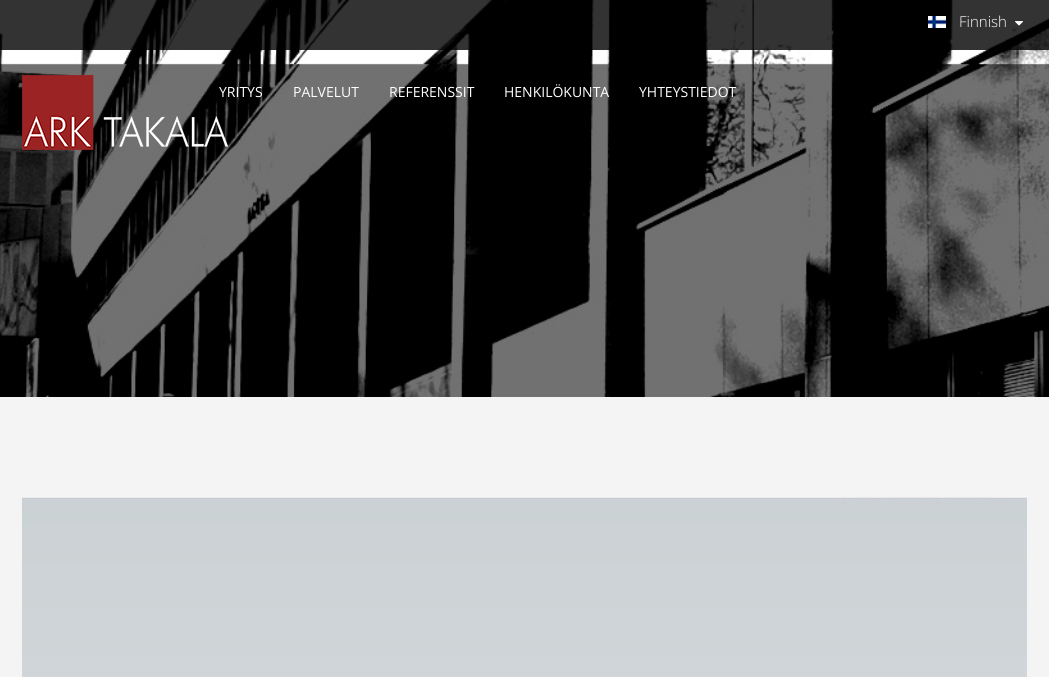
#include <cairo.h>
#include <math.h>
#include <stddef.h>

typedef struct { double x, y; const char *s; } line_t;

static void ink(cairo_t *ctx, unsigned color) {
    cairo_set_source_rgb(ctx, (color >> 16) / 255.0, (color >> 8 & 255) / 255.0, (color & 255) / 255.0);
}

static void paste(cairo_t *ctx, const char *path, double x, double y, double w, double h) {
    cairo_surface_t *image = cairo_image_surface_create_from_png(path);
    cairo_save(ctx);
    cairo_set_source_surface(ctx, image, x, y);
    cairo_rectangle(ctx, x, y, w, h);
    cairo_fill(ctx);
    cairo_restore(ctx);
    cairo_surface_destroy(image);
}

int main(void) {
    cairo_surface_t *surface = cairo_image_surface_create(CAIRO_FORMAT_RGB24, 1049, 677);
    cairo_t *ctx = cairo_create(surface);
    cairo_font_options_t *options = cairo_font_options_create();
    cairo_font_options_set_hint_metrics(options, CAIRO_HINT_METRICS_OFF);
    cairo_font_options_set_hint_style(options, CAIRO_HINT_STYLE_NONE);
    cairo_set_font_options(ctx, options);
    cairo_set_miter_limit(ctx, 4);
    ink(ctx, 0xF5F4F4);
    cairo_paint(ctx);
    paste(ctx, "media/1.png", 0, 0, 1049, 397);
    cairo_set_source_rgba(ctx, 0, 0, 0, 0.8);
    cairo_rectangle(ctx, 0, 0, 1049, 50);
    cairo_fill(ctx);
    paste(ctx, "media/2.png", 928, 16, 18, 12);
    cairo_select_font_face(ctx, "Open Sans Light", CAIRO_FONT_SLANT_NORMAL, CAIRO_FONT_WEIGHT_NORMAL);
    cairo_set_font_size(ctx, 15);
    ink(ctx, 0xFFFFFF);
    cairo_move_to(ctx, 959, 27);
    cairo_show_text(ctx, "Finnish");
    paste(ctx, "media/3.png", 1015, 21, 8, 5);
    paste(ctx, "media/4.png", 22, 75, 206, 75);
    cairo_select_font_face(ctx, "Open Sans", CAIRO_FONT_SLANT_NORMAL, CAIRO_FONT_WEIGHT_NORMAL);
    cairo_set_font_size(ctx, 14);
    {
        static const line_t items[] = {
            {219, 97, "YRITYS"},
            {293, 97, "PALVELUT"},
            {389, 97, "REFERENSSIT"},
            {504, 97, "HENKILÖKUNTA"},
            {639, 97, "YHTEYSTIEDOT"},
        };
        for (size_t i = 0; i < sizeof items / sizeof *items; i++) {
            cairo_move_to(ctx, items[i].x, items[i].y);
            cairo_show_text(ctx, items[i].s);
        }
    }
    paste(ctx, "media/5.png", 22, 497, 1005, 180);
    cairo_surface_write_to_png(surface, "image.png");
    cairo_font_options_destroy(options);
    cairo_destroy(ctx);
    cairo_surface_destroy(surface);
    return 0;
}
